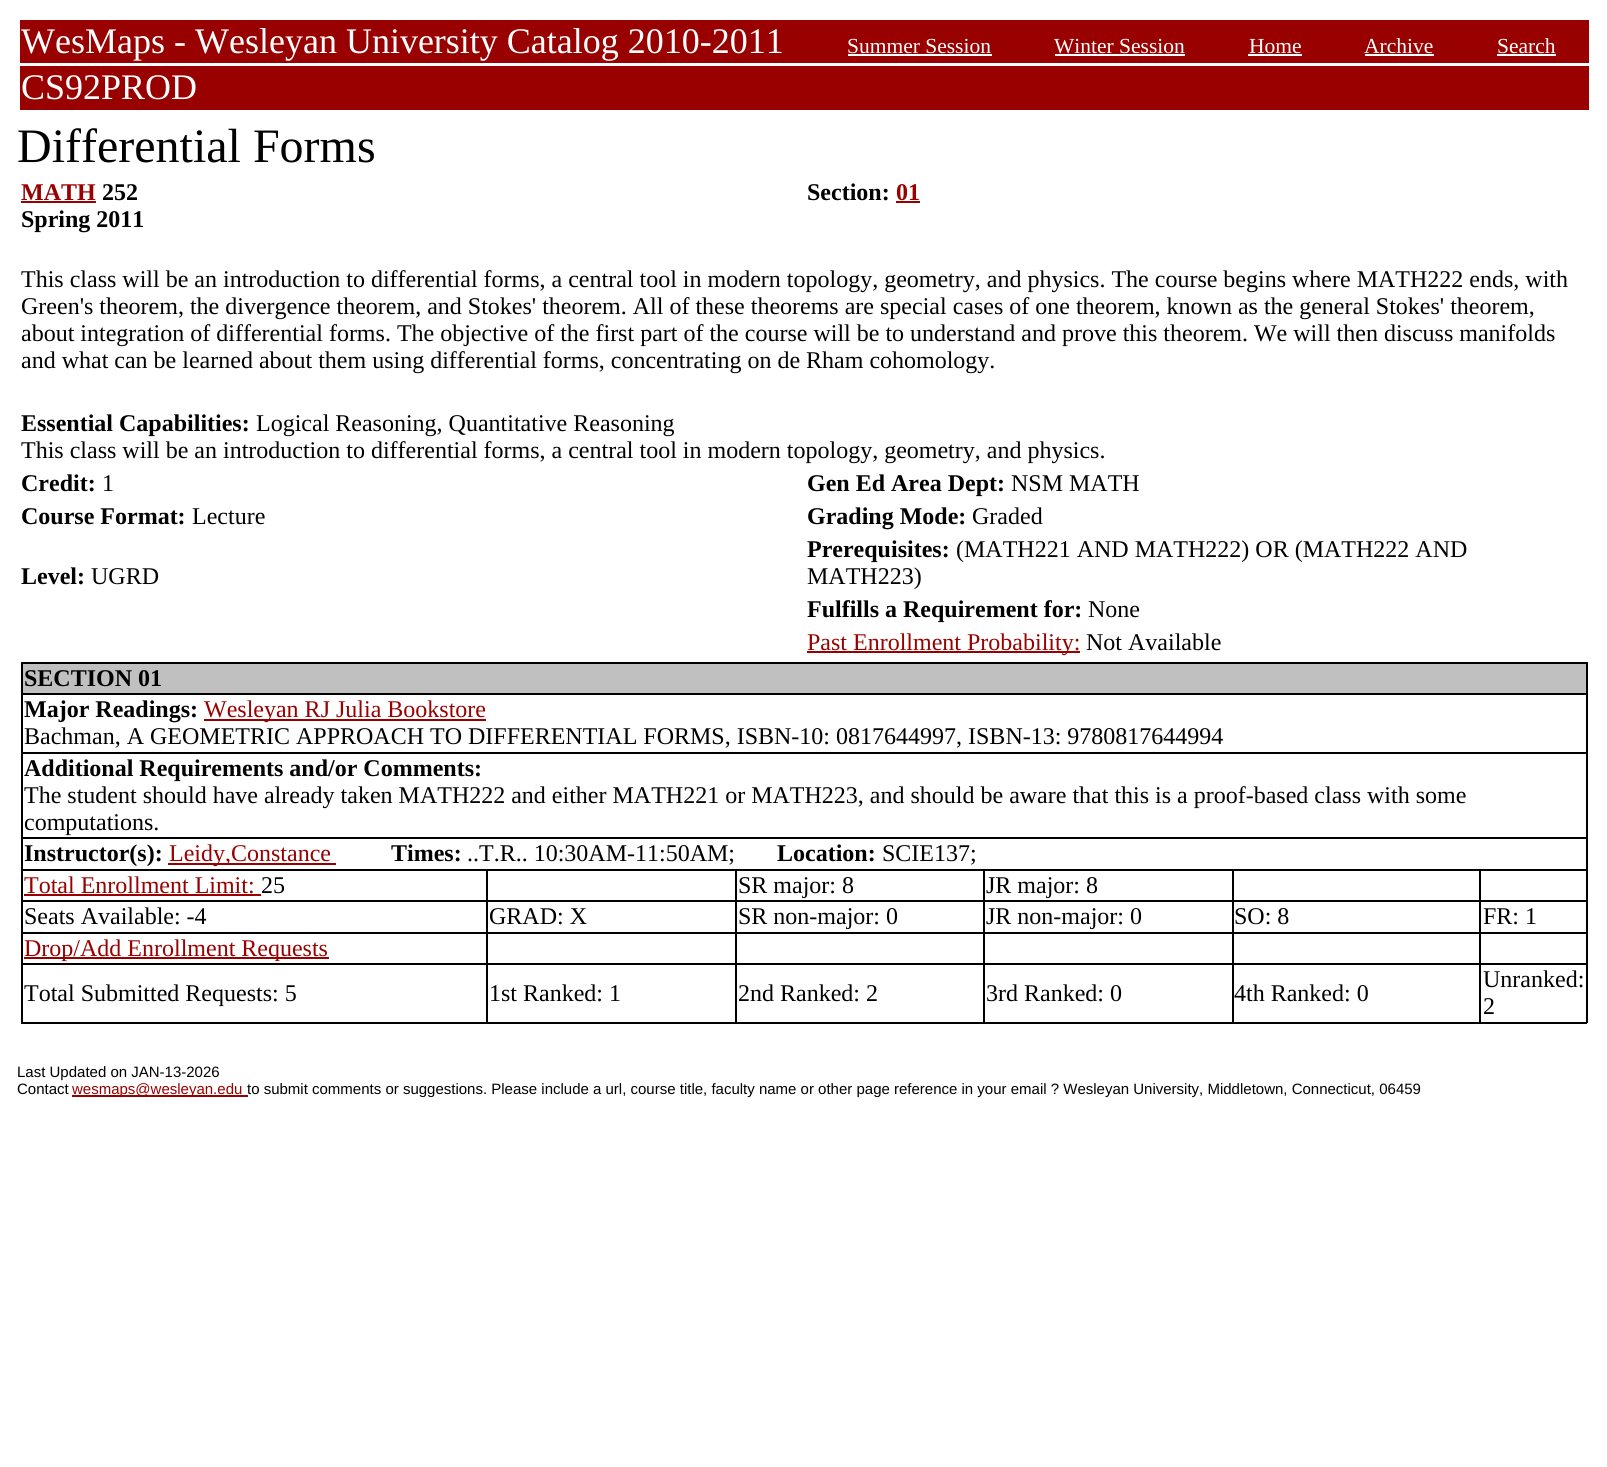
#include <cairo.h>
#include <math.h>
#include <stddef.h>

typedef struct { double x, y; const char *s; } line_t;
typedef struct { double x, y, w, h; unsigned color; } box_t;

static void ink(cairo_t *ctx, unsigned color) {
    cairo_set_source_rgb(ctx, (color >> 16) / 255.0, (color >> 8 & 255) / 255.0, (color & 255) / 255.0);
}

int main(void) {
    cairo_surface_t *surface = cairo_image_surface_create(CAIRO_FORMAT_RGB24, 1607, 1467);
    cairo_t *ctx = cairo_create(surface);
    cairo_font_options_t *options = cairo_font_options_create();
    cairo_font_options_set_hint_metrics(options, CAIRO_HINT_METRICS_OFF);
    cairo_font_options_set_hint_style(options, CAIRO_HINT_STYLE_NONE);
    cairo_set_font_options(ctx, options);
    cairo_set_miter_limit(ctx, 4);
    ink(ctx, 0xFFFFFF);
    cairo_paint(ctx);
    ink(ctx, 0x990000);
    cairo_rectangle(ctx, 20, 20, 1569, 43);
    cairo_fill(ctx);
    cairo_select_font_face(ctx, "Liberation Serif", CAIRO_FONT_SLANT_NORMAL, CAIRO_FONT_WEIGHT_NORMAL);
    cairo_set_font_size(ctx, 36);
    ink(ctx, 0xFFFFFF);
    cairo_move_to(ctx, 21, 53);
    cairo_show_text(ctx, "WesMaps - Wesleyan University Catalog 2010-2011");
    cairo_set_font_size(ctx, 21.5);
    cairo_move_to(ctx, 847, 53);
    cairo_show_text(ctx, "Summer Session");
    cairo_rectangle(ctx, 848, 54, 144, 2);
    cairo_fill(ctx);
    cairo_move_to(ctx, 1054, 53);
    cairo_show_text(ctx, "Winter Session");
    cairo_rectangle(ctx, 1055, 54, 130, 2);
    cairo_fill(ctx);
    cairo_move_to(ctx, 1249, 53);
    cairo_show_text(ctx, "Home");
    cairo_rectangle(ctx, 1248, 54, 54, 2);
    cairo_fill(ctx);
    cairo_move_to(ctx, 1364, 53);
    cairo_show_text(ctx, "Archive");
    cairo_rectangle(ctx, 1365, 54, 69, 2);
    cairo_fill(ctx);
    cairo_move_to(ctx, 1497, 53);
    cairo_show_text(ctx, "Search");
    cairo_rectangle(ctx, 1497, 54, 59, 2);
    cairo_fill(ctx);
    ink(ctx, 0x990000);
    cairo_rectangle(ctx, 20, 66, 1569, 44);
    cairo_fill(ctx);
    cairo_set_font_size(ctx, 36);
    ink(ctx, 0xFFFFFF);
    cairo_move_to(ctx, 21, 99);
    cairo_show_text(ctx, "CS92PROD");
    cairo_set_font_size(ctx, 48);
    ink(ctx, 0x000000);
    cairo_move_to(ctx, 17, 162);
    cairo_show_text(ctx, "Differential Forms");
    cairo_select_font_face(ctx, "Liberation Serif", CAIRO_FONT_SLANT_NORMAL, CAIRO_FONT_WEIGHT_BOLD);
    cairo_set_font_size(ctx, 24);
    ink(ctx, 0x990000);
    cairo_move_to(ctx, 21, 200);
    cairo_show_text(ctx, "MATH");
    cairo_rectangle(ctx, 21, 201, 75, 2);
    cairo_fill(ctx);
    ink(ctx, 0x000000);
    {
        static const line_t items[] = {
            {102, 200, "252"},
            {21, 227, "Spring 2011"},
            {807, 200, "Section:"},
        };
        for (size_t i = 0; i < sizeof items / sizeof *items; i++) {
            cairo_move_to(ctx, items[i].x, items[i].y);
            cairo_show_text(ctx, items[i].s);
        }
    }
    ink(ctx, 0x990000);
    cairo_move_to(ctx, 896, 200);
    cairo_show_text(ctx, "01");
    cairo_rectangle(ctx, 896, 201, 24, 2);
    cairo_fill(ctx);
    cairo_select_font_face(ctx, "Liberation Serif", CAIRO_FONT_SLANT_NORMAL, CAIRO_FONT_WEIGHT_NORMAL);
    ink(ctx, 0x000000);
    {
        static const line_t items[] = {
            {21, 287, "This class will be an introduction to differential forms, a central tool in modern topology, geometry, and physics. The course begins where MATH222 ends, with"},
            {21, 314, "Green's theorem, the divergence theorem, and Stokes' theorem. All of these theorems are special cases of one theorem, known as the general Stokes' theorem,"},
            {21, 341, "about integration of differential forms. The objective of the first part of the course will be to understand and prove this theorem. We will then discuss manifolds"},
            {21, 368, "and what can be learned about them using differential forms, concentrating on de Rham cohomology."},
        };
        for (size_t i = 0; i < sizeof items / sizeof *items; i++) {
            cairo_move_to(ctx, items[i].x, items[i].y);
            cairo_show_text(ctx, items[i].s);
        }
    }
    cairo_select_font_face(ctx, "Liberation Serif", CAIRO_FONT_SLANT_NORMAL, CAIRO_FONT_WEIGHT_BOLD);
    cairo_move_to(ctx, 21, 431);
    cairo_show_text(ctx, "Essential Capabilities:");
    cairo_select_font_face(ctx, "Liberation Serif", CAIRO_FONT_SLANT_NORMAL, CAIRO_FONT_WEIGHT_NORMAL);
    cairo_move_to(ctx, 256, 431);
    cairo_show_text(ctx, "Logical Reasoning, Quantitative Reasoning");
    cairo_move_to(ctx, 21, 458);
    cairo_show_text(ctx, "This class will be an introduction to differential forms, a central tool in modern topology, geometry, and physics.");
    cairo_select_font_face(ctx, "Liberation Serif", CAIRO_FONT_SLANT_NORMAL, CAIRO_FONT_WEIGHT_BOLD);
    cairo_move_to(ctx, 21, 491);
    cairo_show_text(ctx, "Credit:");
    cairo_select_font_face(ctx, "Liberation Serif", CAIRO_FONT_SLANT_NORMAL, CAIRO_FONT_WEIGHT_NORMAL);
    cairo_move_to(ctx, 102, 491);
    cairo_show_text(ctx, "1");
    cairo_select_font_face(ctx, "Liberation Serif", CAIRO_FONT_SLANT_NORMAL, CAIRO_FONT_WEIGHT_BOLD);
    cairo_move_to(ctx, 807, 491);
    cairo_show_text(ctx, "Gen Ed Area Dept:");
    cairo_select_font_face(ctx, "Liberation Serif", CAIRO_FONT_SLANT_NORMAL, CAIRO_FONT_WEIGHT_NORMAL);
    cairo_move_to(ctx, 1011, 491);
    cairo_show_text(ctx, "NSM MATH");
    cairo_select_font_face(ctx, "Liberation Serif", CAIRO_FONT_SLANT_NORMAL, CAIRO_FONT_WEIGHT_BOLD);
    cairo_move_to(ctx, 21, 524);
    cairo_show_text(ctx, "Course Format:");
    cairo_select_font_face(ctx, "Liberation Serif", CAIRO_FONT_SLANT_NORMAL, CAIRO_FONT_WEIGHT_NORMAL);
    cairo_move_to(ctx, 192, 524);
    cairo_show_text(ctx, "Lecture");
    cairo_select_font_face(ctx, "Liberation Serif", CAIRO_FONT_SLANT_NORMAL, CAIRO_FONT_WEIGHT_BOLD);
    cairo_move_to(ctx, 807, 524);
    cairo_show_text(ctx, "Grading Mode:");
    cairo_select_font_face(ctx, "Liberation Serif", CAIRO_FONT_SLANT_NORMAL, CAIRO_FONT_WEIGHT_NORMAL);
    cairo_move_to(ctx, 972, 524);
    cairo_show_text(ctx, "Graded");
    cairo_select_font_face(ctx, "Liberation Serif", CAIRO_FONT_SLANT_NORMAL, CAIRO_FONT_WEIGHT_BOLD);
    cairo_move_to(ctx, 21, 584);
    cairo_show_text(ctx, "Level:");
    cairo_select_font_face(ctx, "Liberation Serif", CAIRO_FONT_SLANT_NORMAL, CAIRO_FONT_WEIGHT_NORMAL);
    cairo_move_to(ctx, 91, 584);
    cairo_show_text(ctx, "UGRD");
    cairo_select_font_face(ctx, "Liberation Serif", CAIRO_FONT_SLANT_NORMAL, CAIRO_FONT_WEIGHT_BOLD);
    cairo_move_to(ctx, 807, 557);
    cairo_show_text(ctx, "Prerequisites:");
    cairo_select_font_face(ctx, "Liberation Serif", CAIRO_FONT_SLANT_NORMAL, CAIRO_FONT_WEIGHT_NORMAL);
    cairo_move_to(ctx, 956, 557);
    cairo_show_text(ctx, "(MATH221 AND MATH222) OR (MATH222 AND");
    cairo_move_to(ctx, 807, 584);
    cairo_show_text(ctx, "MATH223)");
    cairo_select_font_face(ctx, "Liberation Serif", CAIRO_FONT_SLANT_NORMAL, CAIRO_FONT_WEIGHT_BOLD);
    cairo_move_to(ctx, 807, 617);
    cairo_show_text(ctx, "Fulfills a Requirement for:");
    cairo_select_font_face(ctx, "Liberation Serif", CAIRO_FONT_SLANT_NORMAL, CAIRO_FONT_WEIGHT_NORMAL);
    cairo_move_to(ctx, 1088, 617);
    cairo_show_text(ctx, "None");
    ink(ctx, 0x990000);
    cairo_rectangle(ctx, 807, 651, 273, 2);
    cairo_fill(ctx);
    cairo_move_to(ctx, 807, 650);
    cairo_show_text(ctx, "Past Enrollment Probability:");
    ink(ctx, 0x000000);
    cairo_move_to(ctx, 1086, 650);
    cairo_show_text(ctx, "Not Available");
    {
        static const box_t items[] = {
            {21, 662, 1566, 2, 0x000000},
            {1586, 662, 2, 361, 0x000000},
            {21, 1022, 1566, 2, 0x000000},
            {21, 662, 2, 361, 0x000000},
            {23, 664, 1563, 29, 0xC0C0C0},
        };
        for (size_t i = 0; i < sizeof items / sizeof *items; i++) {
            ink(ctx, items[i].color);
            cairo_rectangle(ctx, items[i].x, items[i].y, items[i].w, items[i].h);
            cairo_fill(ctx);
        }
    }
    cairo_select_font_face(ctx, "Liberation Serif", CAIRO_FONT_SLANT_NORMAL, CAIRO_FONT_WEIGHT_BOLD);
    ink(ctx, 0x000000);
    cairo_move_to(ctx, 24, 686);
    cairo_show_text(ctx, "SECTION 01");
    cairo_rectangle(ctx, 21, 693, 1566, 2);
    cairo_fill(ctx);
    cairo_move_to(ctx, 24, 717);
    cairo_show_text(ctx, "Major Readings:");
    ink(ctx, 0x990000);
    cairo_rectangle(ctx, 204, 719, 282, 2);
    cairo_fill(ctx);
    cairo_select_font_face(ctx, "Liberation Serif", CAIRO_FONT_SLANT_NORMAL, CAIRO_FONT_WEIGHT_NORMAL);
    cairo_move_to(ctx, 204, 717);
    cairo_show_text(ctx, "Wesleyan RJ Julia Bookstore");
    ink(ctx, 0x000000);
    cairo_move_to(ctx, 24, 744);
    cairo_show_text(ctx, "Bachman, A GEOMETRIC APPROACH TO DIFFERENTIAL FORMS, ISBN-10: 0817644997, ISBN-13: 9780817644994");
    cairo_rectangle(ctx, 21, 752, 1566, 2);
    cairo_fill(ctx);
    cairo_select_font_face(ctx, "Liberation Serif", CAIRO_FONT_SLANT_NORMAL, CAIRO_FONT_WEIGHT_BOLD);
    cairo_move_to(ctx, 24, 776);
    cairo_show_text(ctx, "Additional Requirements and/or Comments:");
    cairo_select_font_face(ctx, "Liberation Serif", CAIRO_FONT_SLANT_NORMAL, CAIRO_FONT_WEIGHT_NORMAL);
    cairo_move_to(ctx, 24, 803);
    cairo_show_text(ctx, "The student should have already taken MATH222 and either MATH221 or MATH223, and should be aware that this is a proof-based class with some");
    cairo_move_to(ctx, 24, 830);
    cairo_show_text(ctx, "computations.");
    cairo_rectangle(ctx, 21, 837, 1566, 2);
    cairo_fill(ctx);
    cairo_select_font_face(ctx, "Liberation Serif", CAIRO_FONT_SLANT_NORMAL, CAIRO_FONT_WEIGHT_BOLD);
    cairo_move_to(ctx, 24, 861);
    cairo_show_text(ctx, "Instructor(s):");
    ink(ctx, 0x990000);
    cairo_rectangle(ctx, 168, 863, 168, 2);
    cairo_fill(ctx);
    cairo_select_font_face(ctx, "Liberation Serif", CAIRO_FONT_SLANT_NORMAL, CAIRO_FONT_WEIGHT_NORMAL);
    cairo_move_to(ctx, 169, 861);
    cairo_show_text(ctx, "Leidy,Constance");
    cairo_select_font_face(ctx, "Liberation Serif", CAIRO_FONT_SLANT_NORMAL, CAIRO_FONT_WEIGHT_BOLD);
    ink(ctx, 0x000000);
    cairo_move_to(ctx, 391, 861);
    cairo_show_text(ctx, "Times:");
    cairo_select_font_face(ctx, "Liberation Serif", CAIRO_FONT_SLANT_NORMAL, CAIRO_FONT_WEIGHT_NORMAL);
    cairo_move_to(ctx, 467, 861);
    cairo_show_text(ctx, "..T.R.. 10:30AM-11:50AM;");
    cairo_select_font_face(ctx, "Liberation Serif", CAIRO_FONT_SLANT_NORMAL, CAIRO_FONT_WEIGHT_BOLD);
    cairo_move_to(ctx, 777, 861);
    cairo_show_text(ctx, "Location:");
    cairo_select_font_face(ctx, "Liberation Serif", CAIRO_FONT_SLANT_NORMAL, CAIRO_FONT_WEIGHT_NORMAL);
    cairo_move_to(ctx, 882, 861);
    cairo_show_text(ctx, "SCIE137;");
    {
        static const box_t items[] = {
            {1479, 869, 108, 2, 0x000000},
            {1479, 900, 108, 2, 0x000000},
            {1479, 932, 108, 2, 0x000000},
            {1479, 963, 108, 2, 0x000000},
            {1479, 963, 2, 60, 0x000000},
            {1232, 963, 249, 2, 0x000000},
            {1479, 932, 2, 33, 0x000000},
            {1232, 932, 249, 2, 0x000000},
            {1479, 900, 2, 33, 0x000000},
            {1232, 900, 249, 2, 0x000000},
            {1479, 869, 2, 33, 0x000000},
            {1232, 869, 249, 2, 0x000000},
            {1232, 963, 2, 60, 0x000000},
            {983, 963, 250, 2, 0x000000},
            {1232, 932, 2, 33, 0x000000},
            {983, 932, 250, 2, 0x000000},
            {1232, 900, 2, 33, 0x000000},
            {983, 900, 250, 2, 0x000000},
            {1232, 869, 2, 33, 0x000000},
            {983, 869, 250, 2, 0x000000},
            {983, 963, 2, 60, 0x000000},
            {735, 963, 249, 2, 0x000000},
            {983, 932, 2, 33, 0x000000},
            {735, 932, 249, 2, 0x000000},
            {983, 900, 2, 33, 0x000000},
            {735, 900, 249, 2, 0x000000},
            {983, 869, 2, 33, 0x000000},
            {735, 869, 249, 2, 0x000000},
            {735, 963, 2, 60, 0x000000},
            {486, 963, 251, 2, 0x000000},
            {735, 932, 2, 33, 0x000000},
            {486, 932, 251, 2, 0x000000},
            {735, 900, 2, 33, 0x000000},
            {486, 900, 251, 2, 0x000000},
            {735, 869, 2, 33, 0x000000},
            {486, 869, 251, 2, 0x000000},
            {486, 963, 2, 60, 0x000000},
            {21, 963, 467, 2, 0x000000},
            {486, 932, 2, 33, 0x000000},
            {21, 932, 467, 2, 0x000000},
            {486, 900, 2, 33, 0x000000},
            {21, 900, 467, 2, 0x000000},
            {486, 869, 2, 33, 0x000000},
            {21, 869, 467, 2, 0x000000},
        };
        for (size_t i = 0; i < sizeof items / sizeof *items; i++) {
            ink(ctx, items[i].color);
            cairo_rectangle(ctx, items[i].x, items[i].y, items[i].w, items[i].h);
            cairo_fill(ctx);
        }
    }
    ink(ctx, 0x990000);
    cairo_move_to(ctx, 24, 893);
    cairo_show_text(ctx, "Total Enrollment Limit:");
    cairo_rectangle(ctx, 24, 894, 237, 2);
    cairo_fill(ctx);
    ink(ctx, 0x000000);
    {
        static const line_t items[] = {
            {261, 893, "25"},
            {738, 893, "SR major: 8"},
            {986, 893, "JR major: 8"},
            {24, 924, "Seats Available: -4"},
            {489, 924, "GRAD: X"},
            {738, 924, "SR non-major: 0"},
            {986, 924, "JR non-major: 0"},
            {1234, 924, "SO: 8"},
            {1483, 924, "FR: 1"},
        };
        for (size_t i = 0; i < sizeof items / sizeof *items; i++) {
            cairo_move_to(ctx, items[i].x, items[i].y);
            cairo_show_text(ctx, items[i].s);
        }
    }
    ink(ctx, 0x990000);
    cairo_rectangle(ctx, 24, 957, 305, 2);
    cairo_fill(ctx);
    cairo_move_to(ctx, 24, 956);
    cairo_show_text(ctx, "Drop/Add Enrollment Requests");
    ink(ctx, 0x000000);
    {
        static const line_t items[] = {
            {24, 1001, "Total Submitted Requests: 5"},
            {489, 1001, "1st Ranked: 1"},
            {738, 1001, "2nd Ranked: 2"},
            {986, 1001, "3rd Ranked: 0"},
            {1234, 1001, "4th Ranked: 0"},
            {1483, 987, "Unranked:"},
            {1483, 1014, "2"},
        };
        for (size_t i = 0; i < sizeof items / sizeof *items; i++) {
            cairo_move_to(ctx, items[i].x, items[i].y);
            cairo_show_text(ctx, items[i].s);
        }
    }
    cairo_select_font_face(ctx, "Liberation Sans", CAIRO_FONT_SLANT_NORMAL, CAIRO_FONT_WEIGHT_NORMAL);
    cairo_set_font_size(ctx, 15);
    cairo_move_to(ctx, 17, 1077);
    cairo_show_text(ctx, "Last Updated on JAN-13-2026");
    cairo_move_to(ctx, 17, 1094);
    cairo_show_text(ctx, "Contact");
    ink(ctx, 0x990000);
    cairo_rectangle(ctx, 72, 1095, 176, 2);
    cairo_fill(ctx);
    cairo_move_to(ctx, 72, 1094);
    cairo_show_text(ctx, "wesmaps@wesleyan.edu");
    ink(ctx, 0x000000);
    cairo_move_to(ctx, 247, 1094);
    cairo_show_text(ctx, "to submit comments or suggestions. Please include a url, course title, faculty name or other page reference in your email ? Wesleyan University, Middletown, Connecticut, 06459");
    cairo_surface_write_to_png(surface, "image.png");
    cairo_font_options_destroy(options);
    cairo_destroy(ctx);
    cairo_surface_destroy(surface);
    return 0;
}
